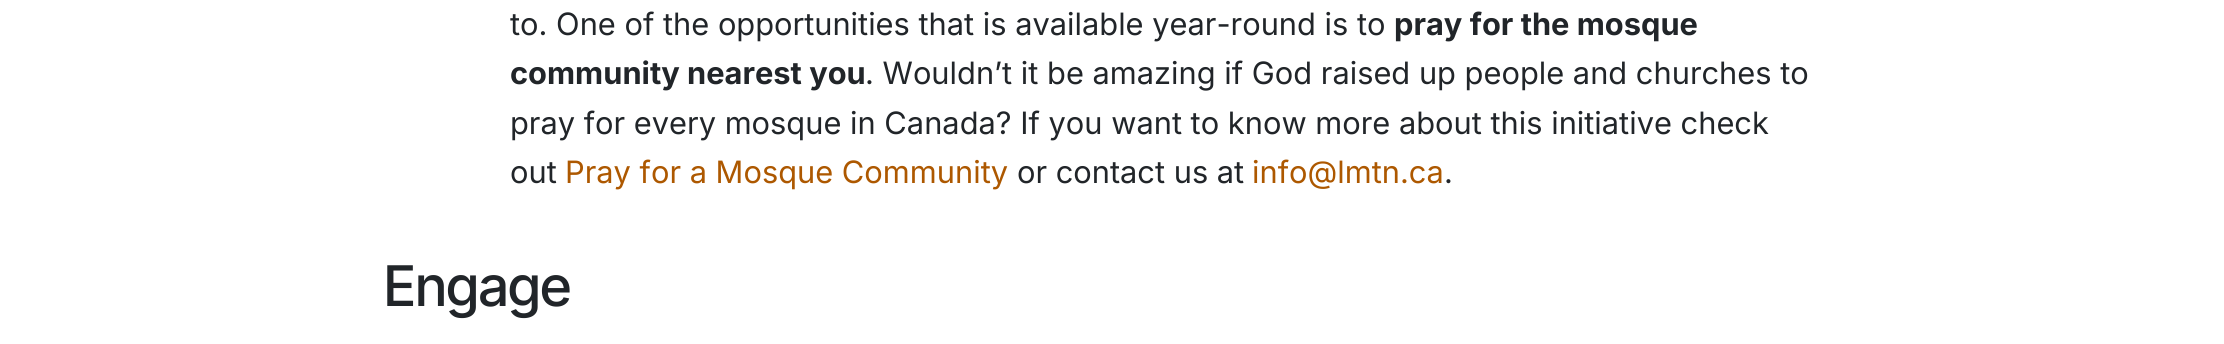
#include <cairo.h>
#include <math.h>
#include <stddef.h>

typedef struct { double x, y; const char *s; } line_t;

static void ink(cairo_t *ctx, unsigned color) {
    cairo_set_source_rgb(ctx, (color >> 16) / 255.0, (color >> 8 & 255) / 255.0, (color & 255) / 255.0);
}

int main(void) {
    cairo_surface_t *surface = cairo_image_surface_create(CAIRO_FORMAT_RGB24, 2224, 344);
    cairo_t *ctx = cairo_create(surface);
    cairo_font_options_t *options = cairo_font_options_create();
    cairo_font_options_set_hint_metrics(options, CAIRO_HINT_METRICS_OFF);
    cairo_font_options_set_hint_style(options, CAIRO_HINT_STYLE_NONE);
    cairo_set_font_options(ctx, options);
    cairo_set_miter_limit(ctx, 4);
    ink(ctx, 0xFFFFFF);
    cairo_paint(ctx);
    cairo_select_font_face(ctx, "Inter", CAIRO_FONT_SLANT_NORMAL, CAIRO_FONT_WEIGHT_NORMAL);
    cairo_set_font_size(ctx, 30.8);
    ink(ctx, 0x212529);
    cairo_move_to(ctx, 510, 35);
    cairo_show_text(ctx, "to. One of the opportunities that is available year-round is to");
    cairo_select_font_face(ctx, "Inter", CAIRO_FONT_SLANT_NORMAL, CAIRO_FONT_WEIGHT_BOLD);
    cairo_move_to(ctx, 1394, 35);
    cairo_show_text(ctx, "pray for the mosque");
    cairo_move_to(ctx, 510, 84);
    cairo_show_text(ctx, "community nearest you");
    cairo_select_font_face(ctx, "Inter", CAIRO_FONT_SLANT_NORMAL, CAIRO_FONT_WEIGHT_NORMAL);
    {
        static const line_t items[] = {
            {865, 84, ". Wouldn’t it be amazing if God raised up people and churches to"},
            {510, 134, "pray for every mosque in Canada? If you want to know more about this initiative check"},
            {510, 183, "out"},
        };
        for (size_t i = 0; i < sizeof items / sizeof *items; i++) {
            cairo_move_to(ctx, items[i].x, items[i].y);
            cairo_show_text(ctx, items[i].s);
        }
    }
    ink(ctx, 0xAD5800);
    cairo_move_to(ctx, 565, 183);
    cairo_show_text(ctx, "Pray for a Mosque Community");
    ink(ctx, 0x212529);
    cairo_move_to(ctx, 1017, 183);
    cairo_show_text(ctx, "or contact us at");
    ink(ctx, 0xAD5800);
    cairo_move_to(ctx, 1252, 183);
    cairo_show_text(ctx, "info@lmtn.ca");
    ink(ctx, 0x212529);
    cairo_move_to(ctx, 1444, 183);
    cairo_show_text(ctx, ".");
    cairo_select_font_face(ctx, "Inter Tight Medium", CAIRO_FONT_SLANT_NORMAL, CAIRO_FONT_WEIGHT_NORMAL);
    cairo_set_font_size(ctx, 56);
    cairo_move_to(ctx, 384, 306);
    cairo_show_text(ctx, "Engage");
    cairo_surface_write_to_png(surface, "image.png");
    cairo_font_options_destroy(options);
    cairo_destroy(ctx);
    cairo_surface_destroy(surface);
    return 0;
}
